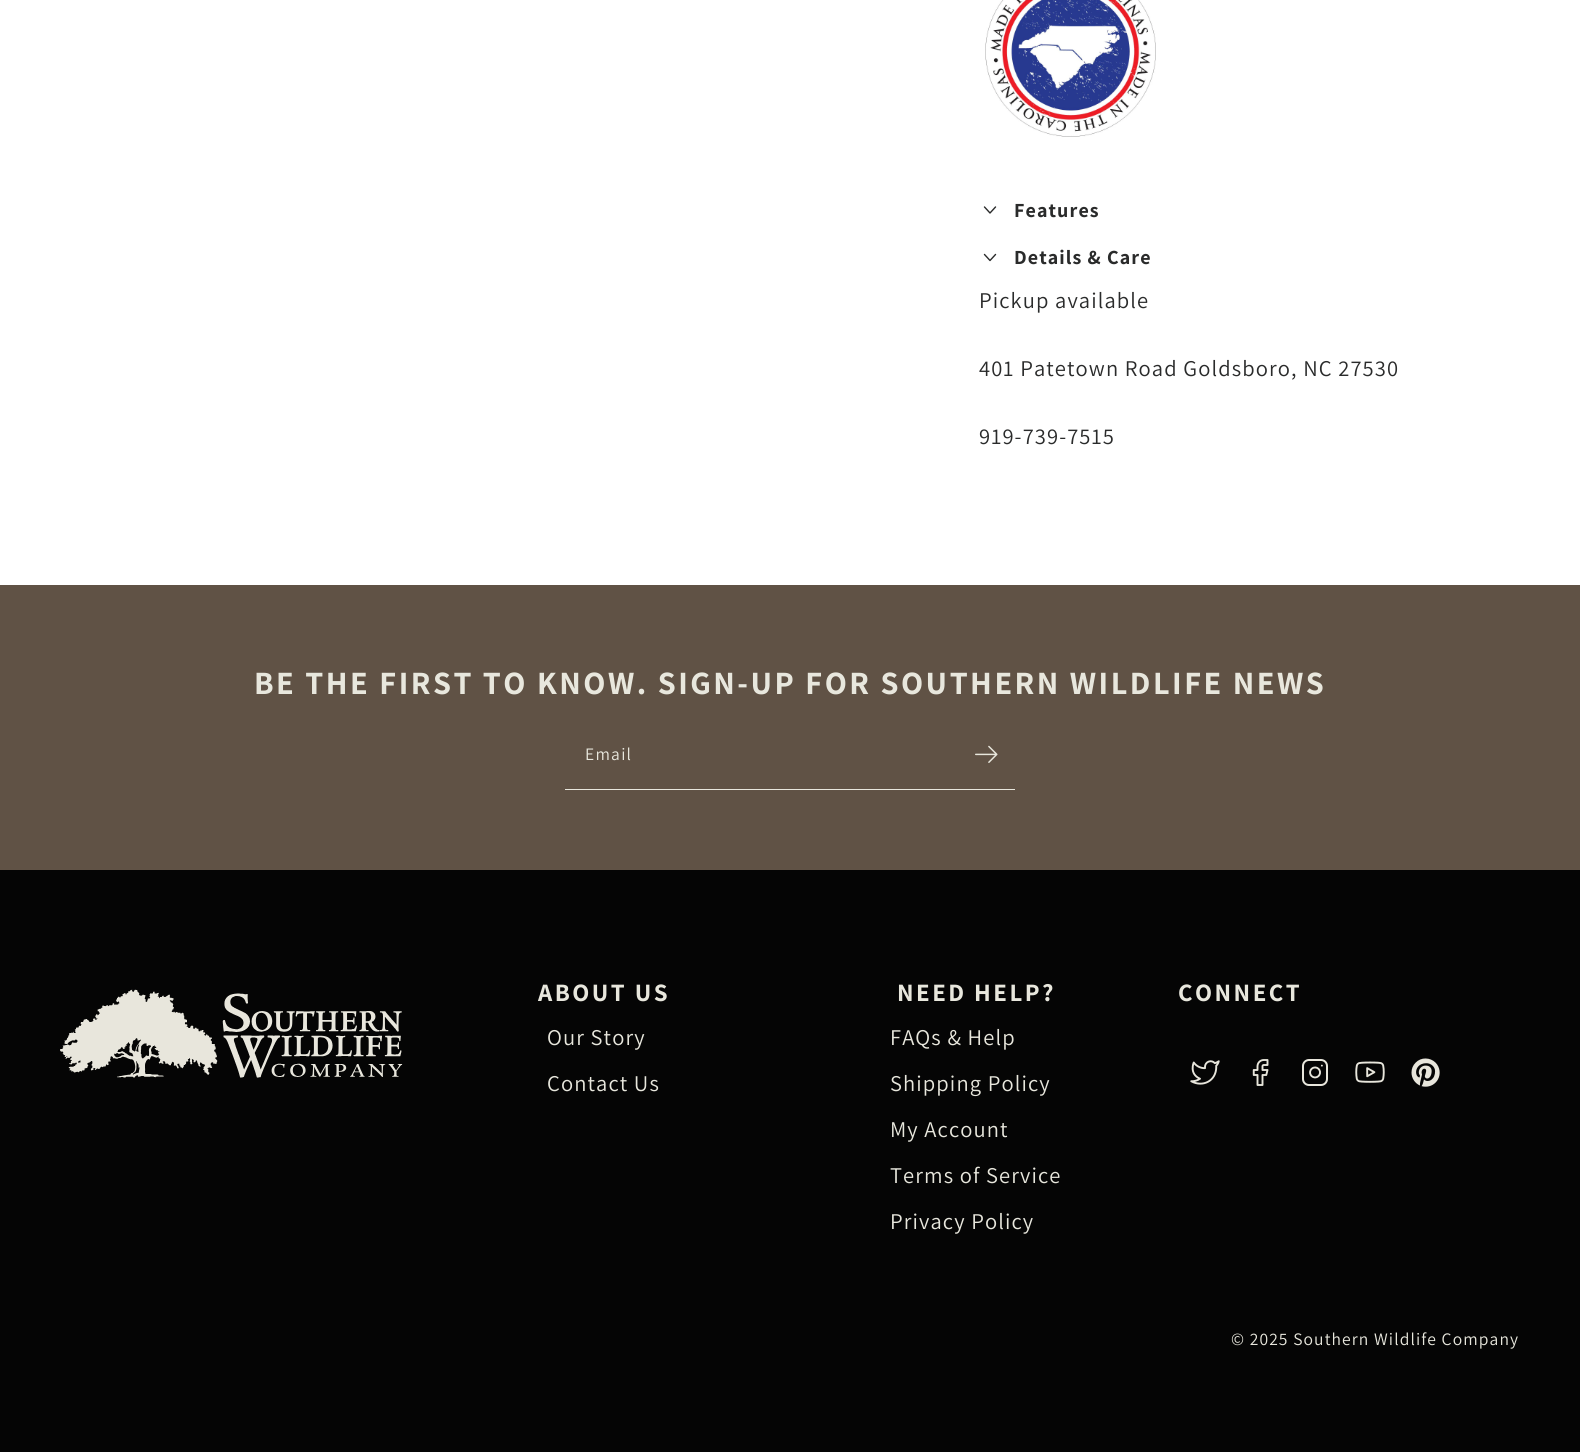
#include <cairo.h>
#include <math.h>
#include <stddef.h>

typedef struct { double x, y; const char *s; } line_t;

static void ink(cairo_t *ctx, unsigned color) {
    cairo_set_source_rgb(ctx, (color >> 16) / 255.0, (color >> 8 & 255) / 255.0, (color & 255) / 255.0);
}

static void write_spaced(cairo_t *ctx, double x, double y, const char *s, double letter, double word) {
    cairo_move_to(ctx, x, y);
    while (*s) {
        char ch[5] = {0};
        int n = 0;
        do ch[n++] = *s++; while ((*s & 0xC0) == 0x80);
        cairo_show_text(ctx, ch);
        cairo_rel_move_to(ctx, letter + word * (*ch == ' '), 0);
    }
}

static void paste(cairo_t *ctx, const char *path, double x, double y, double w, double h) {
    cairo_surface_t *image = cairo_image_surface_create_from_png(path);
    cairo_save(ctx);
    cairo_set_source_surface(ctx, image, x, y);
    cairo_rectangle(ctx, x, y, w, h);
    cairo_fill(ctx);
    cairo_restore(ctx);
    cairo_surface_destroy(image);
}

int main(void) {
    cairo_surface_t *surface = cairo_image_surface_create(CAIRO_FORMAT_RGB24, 1580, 1452);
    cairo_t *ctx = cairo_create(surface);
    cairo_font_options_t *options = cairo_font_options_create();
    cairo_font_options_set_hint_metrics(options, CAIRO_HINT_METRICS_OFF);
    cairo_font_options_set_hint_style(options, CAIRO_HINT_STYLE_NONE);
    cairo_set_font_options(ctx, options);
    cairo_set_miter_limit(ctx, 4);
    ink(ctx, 0xFFFFFF);
    cairo_paint(ctx);
    paste(ctx, "media/1.png", 985, 0, 171, 137);
    cairo_new_path(ctx);
    cairo_move_to(ctx, 984.5, 207);
    cairo_line_to(ctx, 990, 213);
    cairo_line_to(ctx, 995.5, 207);
    cairo_move_to(ctx, 984.5, 254.5);
    cairo_line_to(ctx, 990, 260.5);
    cairo_line_to(ctx, 995.5, 254.5);
    ink(ctx, 0x2A2B2B);
    cairo_set_line_width(ctx, 1.4);
    cairo_set_line_cap(ctx, CAIRO_LINE_CAP_ROUND);
    cairo_set_line_join(ctx, CAIRO_LINE_JOIN_ROUND);
    cairo_stroke(ctx);
    cairo_select_font_face(ctx, "Assistant", CAIRO_FONT_SLANT_NORMAL, CAIRO_FONT_WEIGHT_BOLD);
    cairo_set_font_size(ctx, 20);
    write_spaced(ctx, 1014, 217, "Features", 1.1, 0);
    write_spaced(ctx, 1014, 264, "Details & Care", 1.1, 0);
    cairo_select_font_face(ctx, "Assistant", CAIRO_FONT_SLANT_NORMAL, CAIRO_FONT_WEIGHT_NORMAL);
    cairo_set_font_size(ctx, 22.5);
    {
        static const line_t items[] = {
            {979, 308, "Pickup available"},
            {979, 376, "401 Patetown Road Goldsboro, NC 27530"},
            {979, 444, "919-739-7515"},
        };
        for (size_t i = 0; i < sizeof items / sizeof *items; i++) {
            write_spaced(ctx, items[i].x, items[i].y, items[i].s, 1.1, 0);
        }
    }
    ink(ctx, 0x605245);
    cairo_rectangle(ctx, 0, 585, 1580, 285);
    cairo_fill(ctx);
    cairo_select_font_face(ctx, "Assistant", CAIRO_FONT_SLANT_NORMAL, CAIRO_FONT_WEIGHT_BOLD);
    cairo_set_font_size(ctx, 32.5);
    ink(ctx, 0xE8E7DD);
    write_spaced(ctx, 254, 694, "BE THE FIRST TO KNOW. SIGN-UP FOR SOUTHERN WILDLIFE NEWS", 2.5, 0);
    cairo_select_font_face(ctx, "Assistant", CAIRO_FONT_SLANT_NORMAL, CAIRO_FONT_WEIGHT_NORMAL);
    cairo_set_font_size(ctx, 17.5);
    write_spaced(ctx, 585, 760, "Email", 1.25, 0);
    paste(ctx, "media/2.png", 975, 745, 23, 18);
    cairo_rectangle(ctx, 565, 789, 450, 1);
    cairo_fill(ctx);
    ink(ctx, 0x050505);
    cairo_rectangle(ctx, 0, 870, 1580, 582);
    cairo_fill(ctx);
    paste(ctx, "media/3.png", 60, 989, 343, 89);
    cairo_select_font_face(ctx, "Assistant", CAIRO_FONT_SLANT_NORMAL, CAIRO_FONT_WEIGHT_BOLD);
    cairo_set_font_size(ctx, 25);
    ink(ctx, 0xE8E7DD);
    write_spaced(ctx, 538, 1001, "ABOUT US", 2.5, 0);
    cairo_select_font_face(ctx, "Assistant", CAIRO_FONT_SLANT_NORMAL, CAIRO_FONT_WEIGHT_NORMAL);
    cairo_set_font_size(ctx, 22.5);
    write_spaced(ctx, 547, 1045, "Our Story", 1.1, 0);
    write_spaced(ctx, 547, 1091, "Contact Us", 1.1, 0);
    cairo_select_font_face(ctx, "Assistant", CAIRO_FONT_SLANT_NORMAL, CAIRO_FONT_WEIGHT_BOLD);
    cairo_set_font_size(ctx, 25);
    write_spaced(ctx, 897, 1001, "NEED HELP?", 2.5, 0);
    cairo_select_font_face(ctx, "Assistant", CAIRO_FONT_SLANT_NORMAL, CAIRO_FONT_WEIGHT_NORMAL);
    cairo_set_font_size(ctx, 22.5);
    {
        static const line_t items[] = {
            {890, 1045, "FAQs & Help"},
            {890, 1091, "Shipping Policy"},
            {890, 1137, "My Account"},
            {890, 1183, "Terms of Service"},
            {890, 1229, "Privacy Policy"},
        };
        for (size_t i = 0; i < sizeof items / sizeof *items; i++) {
            write_spaced(ctx, items[i].x, items[i].y, items[i].s, 1.1, 0);
        }
    }
    cairo_select_font_face(ctx, "Assistant", CAIRO_FONT_SLANT_NORMAL, CAIRO_FONT_WEIGHT_BOLD);
    cairo_set_font_size(ctx, 25);
    write_spaced(ctx, 1178, 1001, "CONNECT", 2.5, 0);
    paste(ctx, "media/4.png", 1190, 1060, 30, 25);
    paste(ctx, "media/5.png", 1252, 1059, 17, 27);
    paste(ctx, "media/6.png", 1302, 1059, 26, 27);
    paste(ctx, "media/7.png", 1355, 1061, 30, 22);
    paste(ctx, "media/8.png", 1411, 1058, 29, 29);
    cairo_select_font_face(ctx, "Assistant", CAIRO_FONT_SLANT_NORMAL, CAIRO_FONT_WEIGHT_NORMAL);
    cairo_set_font_size(ctx, 17.5);
    write_spaced(ctx, 1231, 1345, "© 2025 Southern Wildlife Company", 1.1, 0);
    cairo_surface_write_to_png(surface, "image.png");
    cairo_font_options_destroy(options);
    cairo_destroy(ctx);
    cairo_surface_destroy(surface);
    return 0;
}
